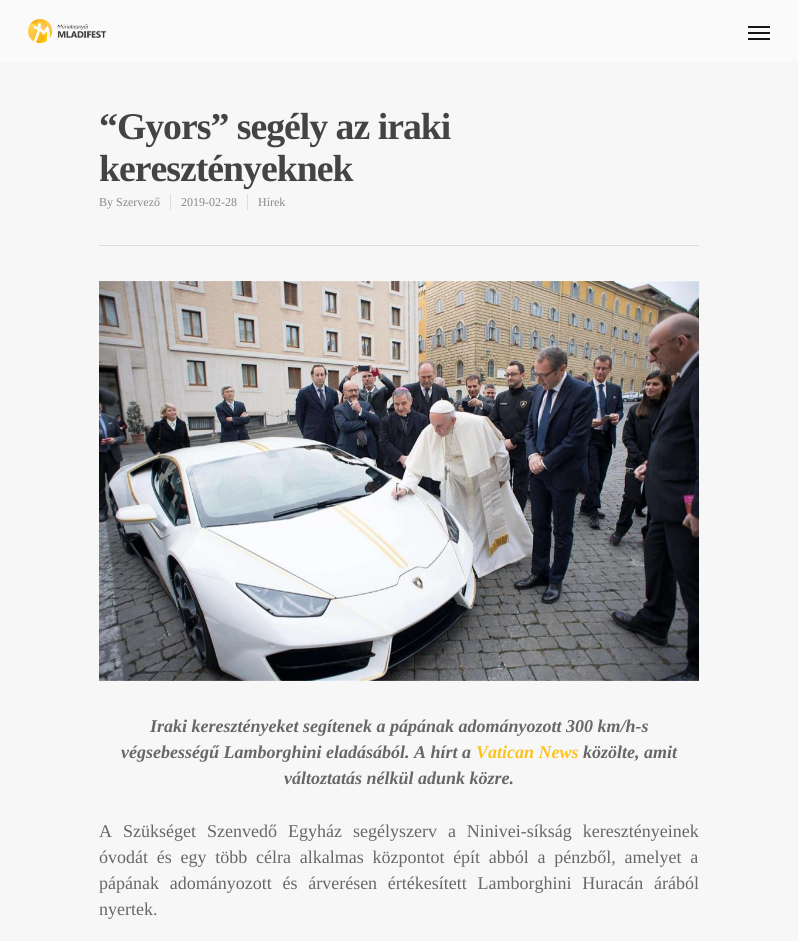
#include <cairo.h>
#include <math.h>
#include <stddef.h>

typedef struct { double x, y, w, h; unsigned color; } box_t;

static void ink(cairo_t *ctx, unsigned color) {
    cairo_set_source_rgb(ctx, (color >> 16) / 255.0, (color >> 8 & 255) / 255.0, (color & 255) / 255.0);
}

static void write_spaced(cairo_t *ctx, double x, double y, const char *s, double letter, double word) {
    cairo_move_to(ctx, x, y);
    while (*s) {
        char ch[5] = {0};
        int n = 0;
        do ch[n++] = *s++; while ((*s & 0xC0) == 0x80);
        cairo_show_text(ctx, ch);
        cairo_rel_move_to(ctx, letter + word * (*ch == ' '), 0);
    }
}

static void paste(cairo_t *ctx, const char *path, double x, double y, double w, double h) {
    cairo_surface_t *image = cairo_image_surface_create_from_png(path);
    cairo_save(ctx);
    cairo_set_source_surface(ctx, image, x, y);
    cairo_rectangle(ctx, x, y, w, h);
    cairo_fill(ctx);
    cairo_restore(ctx);
    cairo_surface_destroy(image);
}

int main(void) {
    cairo_surface_t *surface = cairo_image_surface_create(CAIRO_FORMAT_RGB24, 798, 941);
    cairo_t *ctx = cairo_create(surface);
    cairo_font_options_t *options = cairo_font_options_create();
    cairo_font_options_set_hint_metrics(options, CAIRO_HINT_METRICS_OFF);
    cairo_font_options_set_hint_style(options, CAIRO_HINT_STYLE_NONE);
    cairo_set_font_options(ctx, options);
    cairo_set_miter_limit(ctx, 4);
    ink(ctx, 0xFAFAFA);
    cairo_paint(ctx);
    paste(ctx, "media/1.png", 28, 19, 78, 24);
    {
        static const box_t items[] = {
            {748, 26, 22, 2, 0x161616},
            {748, 38, 22, 2, 0x161616},
            {748, 32, 22, 2, 0x161616},
            {0, 62, 798, 879, 0xF7F7F7},
            {99, 245, 600, 1, 0xDDDDDD},
        };
        for (size_t i = 0; i < sizeof items / sizeof *items; i++) {
            ink(ctx, items[i].color);
            cairo_rectangle(ctx, items[i].x, items[i].y, items[i].w, items[i].h);
            cairo_fill(ctx);
        }
    }
    cairo_select_font_face(ctx, "Liberation Serif", CAIRO_FONT_SLANT_NORMAL, CAIRO_FONT_WEIGHT_BOLD);
    cairo_set_font_size(ctx, 37.75);
    ink(ctx, 0x444444);
    write_spaced(ctx, 99, 139, "“Gyors” segély az iraki", -1, 0);
    write_spaced(ctx, 99, 181, "keresztényeknek", -1, 0);
    cairo_select_font_face(ctx, "Liberation Serif", CAIRO_FONT_SLANT_NORMAL, CAIRO_FONT_WEIGHT_NORMAL);
    cairo_set_font_size(ctx, 12);
    ink(ctx, 0x888888);
    cairo_move_to(ctx, 99, 206);
    cairo_show_text(ctx, "By Szervező");
    ink(ctx, 0xDDDDDD);
    cairo_rectangle(ctx, 170, 194, 1, 16);
    cairo_fill(ctx);
    ink(ctx, 0x888888);
    cairo_move_to(ctx, 181, 206);
    cairo_show_text(ctx, "2019-02-28");
    ink(ctx, 0xDDDDDD);
    cairo_rectangle(ctx, 247, 194, 1, 16);
    cairo_fill(ctx);
    ink(ctx, 0x888888);
    cairo_move_to(ctx, 258, 206);
    cairo_show_text(ctx, "Hírek");
    paste(ctx, "media/2.png", 99, 281, 600, 400);
    cairo_select_font_face(ctx, "Liberation Serif", CAIRO_FONT_SLANT_ITALIC, CAIRO_FONT_WEIGHT_BOLD);
    cairo_set_font_size(ctx, 18);
    ink(ctx, 0x676767);
    cairo_move_to(ctx, 150, 732);
    cairo_show_text(ctx, "Iraki keresztényeket segítenek a pápának adományozott 300 km/h-s");
    cairo_move_to(ctx, 121, 758);
    cairo_show_text(ctx, "végsebességű Lamborghini eladásából. A hírt a");
    ink(ctx, 0xFCC31E);
    cairo_move_to(ctx, 476, 758);
    cairo_show_text(ctx, "Vatican News");
    ink(ctx, 0x676767);
    cairo_move_to(ctx, 583, 758);
    cairo_show_text(ctx, "közölte, amit");
    cairo_move_to(ctx, 284, 784);
    cairo_show_text(ctx, "változtatás nélkül adunk közre.");
    cairo_select_font_face(ctx, "Liberation Serif", CAIRO_FONT_SLANT_NORMAL, CAIRO_FONT_WEIGHT_NORMAL);
    write_spaced(ctx, 99, 837, "A Szükséget Szenvedő Egyház segélyszerv a Ninivei-síkság keresztényeinek", 0, 6.5);
    write_spaced(ctx, 99, 863, "óvodát és egy több célra alkalmas központot épít abból a pénzből, amelyet a", 0, 4.25);
    write_spaced(ctx, 99, 889, "pápának adományozott és árverésen értékesített Lamborghini Huracán árából", 0, 6.25);
    cairo_move_to(ctx, 99, 915);
    cairo_show_text(ctx, "nyertek.");
    cairo_surface_write_to_png(surface, "image.png");
    cairo_font_options_destroy(options);
    cairo_destroy(ctx);
    cairo_surface_destroy(surface);
    return 0;
}
